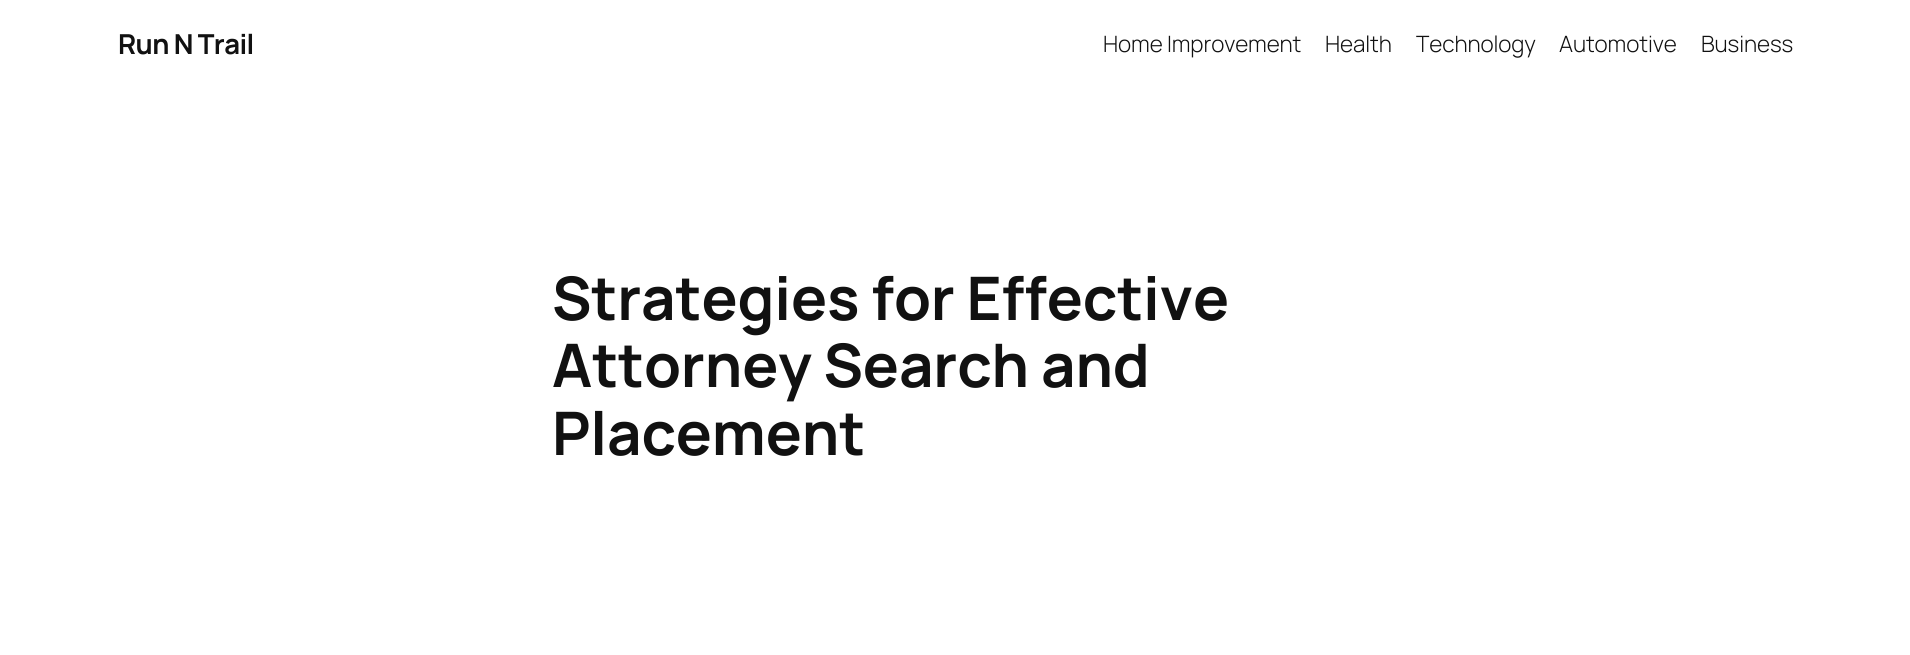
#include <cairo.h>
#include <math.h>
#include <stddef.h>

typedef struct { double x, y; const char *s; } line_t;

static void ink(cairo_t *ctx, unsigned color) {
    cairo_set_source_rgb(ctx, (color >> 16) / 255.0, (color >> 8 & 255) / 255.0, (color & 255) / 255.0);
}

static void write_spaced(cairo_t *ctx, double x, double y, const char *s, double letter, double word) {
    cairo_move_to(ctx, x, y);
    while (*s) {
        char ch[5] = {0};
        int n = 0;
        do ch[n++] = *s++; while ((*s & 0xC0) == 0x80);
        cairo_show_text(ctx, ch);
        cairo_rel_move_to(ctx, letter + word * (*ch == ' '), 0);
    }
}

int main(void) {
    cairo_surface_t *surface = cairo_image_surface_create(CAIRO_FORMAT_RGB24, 1910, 655);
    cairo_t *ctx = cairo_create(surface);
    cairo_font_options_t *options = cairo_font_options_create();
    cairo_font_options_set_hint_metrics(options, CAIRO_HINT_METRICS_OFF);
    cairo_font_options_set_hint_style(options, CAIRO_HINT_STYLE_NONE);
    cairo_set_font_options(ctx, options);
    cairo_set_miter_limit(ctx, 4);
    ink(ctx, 0xFFFFFF);
    cairo_paint(ctx);
    cairo_select_font_face(ctx, "Manrope", CAIRO_FONT_SLANT_NORMAL, CAIRO_FONT_WEIGHT_BOLD);
    cairo_set_font_size(ctx, 27.5);
    ink(ctx, 0x111111);
    write_spaced(ctx, 118, 54, "Run N Trail", -0.6, 0);
    cairo_select_font_face(ctx, "Manrope Light", CAIRO_FONT_SLANT_NORMAL, CAIRO_FONT_WEIGHT_NORMAL);
    cairo_set_font_size(ctx, 22.5);
    {
        static const line_t items[] = {
            {1103, 52, "Home Improvement"},
            {1325, 52, "Health"},
            {1416, 52, "Technology"},
            {1559, 52, "Automotive"},
            {1701, 52, "Business"},
        };
        for (size_t i = 0; i < sizeof items / sizeof *items; i++) {
            write_spaced(ctx, items[i].x, items[i].y, items[i].s, -0.1, 0);
        }
    }
    cairo_select_font_face(ctx, "Manrope", CAIRO_FONT_SLANT_NORMAL, CAIRO_FONT_WEIGHT_BOLD);
    cairo_set_font_size(ctx, 60);
    {
        static const line_t items[] = {
            {552, 320, "Strategies for Effective"},
            {552, 387, "Attorney Search and"},
            {552, 455, "Placement"},
        };
        for (size_t i = 0; i < sizeof items / sizeof *items; i++) {
            write_spaced(ctx, items[i].x, items[i].y, items[i].s, -0.1, 0);
        }
    }
    cairo_surface_write_to_png(surface, "image.png");
    cairo_font_options_destroy(options);
    cairo_destroy(ctx);
    cairo_surface_destroy(surface);
    return 0;
}
